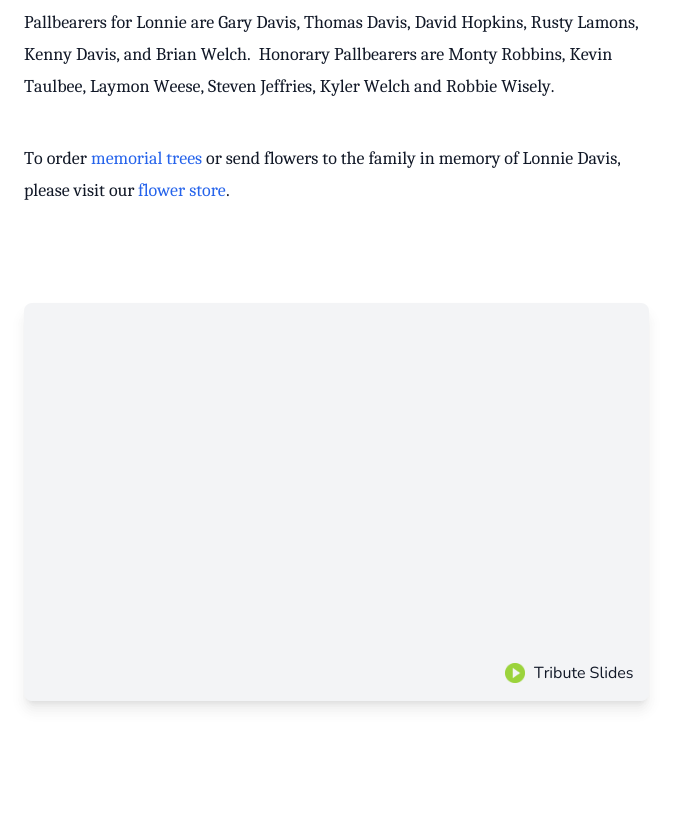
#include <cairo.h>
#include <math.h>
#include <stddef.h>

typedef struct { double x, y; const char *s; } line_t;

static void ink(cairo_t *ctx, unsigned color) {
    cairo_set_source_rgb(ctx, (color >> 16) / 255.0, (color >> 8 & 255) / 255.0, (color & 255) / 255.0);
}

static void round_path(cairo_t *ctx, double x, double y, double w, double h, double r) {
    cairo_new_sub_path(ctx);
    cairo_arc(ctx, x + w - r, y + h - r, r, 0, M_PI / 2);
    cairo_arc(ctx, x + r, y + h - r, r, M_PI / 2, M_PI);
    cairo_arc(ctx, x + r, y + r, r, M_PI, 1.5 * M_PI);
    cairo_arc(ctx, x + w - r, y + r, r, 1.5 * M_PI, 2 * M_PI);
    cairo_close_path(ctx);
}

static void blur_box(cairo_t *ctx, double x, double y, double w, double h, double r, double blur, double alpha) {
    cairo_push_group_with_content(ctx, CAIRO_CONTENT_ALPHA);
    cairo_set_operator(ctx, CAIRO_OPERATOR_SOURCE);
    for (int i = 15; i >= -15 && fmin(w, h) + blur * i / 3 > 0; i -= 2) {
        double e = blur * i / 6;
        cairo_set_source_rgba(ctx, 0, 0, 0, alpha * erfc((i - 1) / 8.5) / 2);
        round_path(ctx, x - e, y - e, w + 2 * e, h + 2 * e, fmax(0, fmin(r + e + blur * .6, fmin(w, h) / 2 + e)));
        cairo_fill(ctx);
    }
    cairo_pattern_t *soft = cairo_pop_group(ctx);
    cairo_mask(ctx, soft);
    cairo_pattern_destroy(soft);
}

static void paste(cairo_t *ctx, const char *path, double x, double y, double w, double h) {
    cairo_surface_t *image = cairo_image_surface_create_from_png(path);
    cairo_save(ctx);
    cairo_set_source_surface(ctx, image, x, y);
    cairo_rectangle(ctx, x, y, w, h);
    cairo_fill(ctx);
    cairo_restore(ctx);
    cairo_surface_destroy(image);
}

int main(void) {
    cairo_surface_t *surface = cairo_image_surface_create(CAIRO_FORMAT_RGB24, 673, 829);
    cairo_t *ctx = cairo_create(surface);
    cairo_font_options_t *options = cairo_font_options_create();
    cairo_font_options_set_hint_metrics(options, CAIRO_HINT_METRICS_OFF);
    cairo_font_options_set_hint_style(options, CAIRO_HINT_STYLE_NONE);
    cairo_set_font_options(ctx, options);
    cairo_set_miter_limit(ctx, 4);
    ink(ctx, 0xFFFFFF);
    cairo_paint(ctx);
    cairo_select_font_face(ctx, "Caladea", CAIRO_FONT_SLANT_NORMAL, CAIRO_FONT_WEIGHT_NORMAL);
    cairo_set_font_size(ctx, 18);
    ink(ctx, 0x111827);
    {
        static const line_t items[] = {
            {24, 28, "Pallbearers for Lonnie are Gary Davis, Thomas Davis, David Hopkins, Rusty Lamons,"},
            {24, 60, "Kenny Davis, and Brian Welch.  Honorary Pallbearers are Monty Robbins, Kevin"},
            {24, 92, "Taulbee, Laymon Weese, Steven Jeffries, Kyler Welch and Robbie Wisely."},
            {24, 164, "To order"},
        };
        for (size_t i = 0; i < sizeof items / sizeof *items; i++) {
            cairo_move_to(ctx, items[i].x, items[i].y);
            cairo_show_text(ctx, items[i].s);
        }
    }
    ink(ctx, 0x2563EB);
    cairo_move_to(ctx, 91, 164);
    cairo_show_text(ctx, "memorial trees");
    ink(ctx, 0x111827);
    cairo_move_to(ctx, 206, 164);
    cairo_show_text(ctx, "or send flowers to the family in memory of Lonnie Davis,");
    cairo_move_to(ctx, 24, 196);
    cairo_show_text(ctx, "please visit our");
    ink(ctx, 0x2563EB);
    cairo_move_to(ctx, 138, 196);
    cairo_show_text(ctx, "flower store");
    ink(ctx, 0x111827);
    cairo_move_to(ctx, 226, 196);
    cairo_show_text(ctx, ".");
    ink(ctx, 0x000000);
    blur_box(ctx, 28, 311, 617, 390, 4, 3, 0.1);
    blur_box(ctx, 27, 316, 619, 392, 5, 7.5, 0.1);
    ink(ctx, 0xF3F4F6);
    round_path(ctx, 24, 303, 625, 398, 8);
    cairo_fill(ctx);
    paste(ctx, "media/1.png", 505, 663, 20, 20);
    cairo_select_font_face(ctx, "Nunito", CAIRO_FONT_SLANT_NORMAL, CAIRO_FONT_WEIGHT_NORMAL);
    cairo_set_font_size(ctx, 16);
    ink(ctx, 0x111827);
    cairo_move_to(ctx, 534, 678);
    cairo_show_text(ctx, "Tribute Slides");
    cairo_surface_write_to_png(surface, "image.png");
    cairo_font_options_destroy(options);
    cairo_destroy(ctx);
    cairo_surface_destroy(surface);
    return 0;
}
